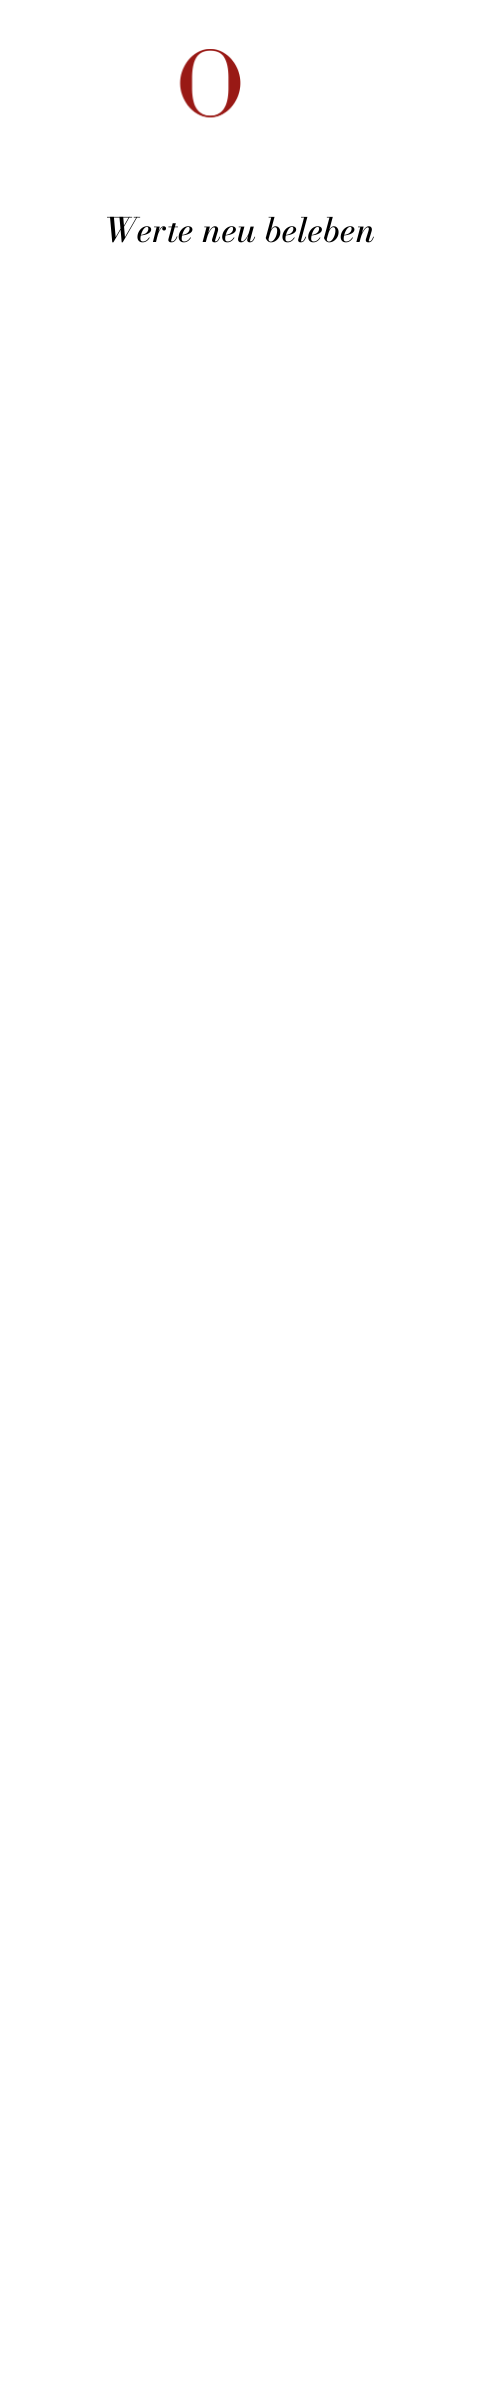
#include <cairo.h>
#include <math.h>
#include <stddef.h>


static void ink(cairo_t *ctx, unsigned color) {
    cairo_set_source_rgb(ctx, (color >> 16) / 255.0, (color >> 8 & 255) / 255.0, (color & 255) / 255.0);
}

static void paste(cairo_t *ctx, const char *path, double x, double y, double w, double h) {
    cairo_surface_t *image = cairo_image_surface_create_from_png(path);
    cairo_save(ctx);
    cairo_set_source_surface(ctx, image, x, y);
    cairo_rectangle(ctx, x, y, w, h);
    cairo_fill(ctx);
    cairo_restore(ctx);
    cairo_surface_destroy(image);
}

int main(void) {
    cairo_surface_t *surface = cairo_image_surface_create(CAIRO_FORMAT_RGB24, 477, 2402);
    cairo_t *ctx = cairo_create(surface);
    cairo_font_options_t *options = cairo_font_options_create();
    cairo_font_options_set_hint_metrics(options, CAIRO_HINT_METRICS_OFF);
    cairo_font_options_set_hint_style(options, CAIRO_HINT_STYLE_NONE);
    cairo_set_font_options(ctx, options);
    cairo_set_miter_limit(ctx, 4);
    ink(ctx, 0xFFFFFF);
    cairo_paint(ctx);
    paste(ctx, "media/1.png", 179, 49, 62, 69);
    cairo_select_font_face(ctx, "Bodoni Moda Medium", CAIRO_FONT_SLANT_ITALIC, CAIRO_FONT_WEIGHT_NORMAL);
    cairo_set_font_size(ctx, 33.5);
    ink(ctx, 0x000000);
    cairo_move_to(ctx, 103, 242);
    cairo_show_text(ctx, "Werte neu beleben");
    cairo_surface_write_to_png(surface, "image.png");
    cairo_font_options_destroy(options);
    cairo_destroy(ctx);
    cairo_surface_destroy(surface);
    return 0;
}
